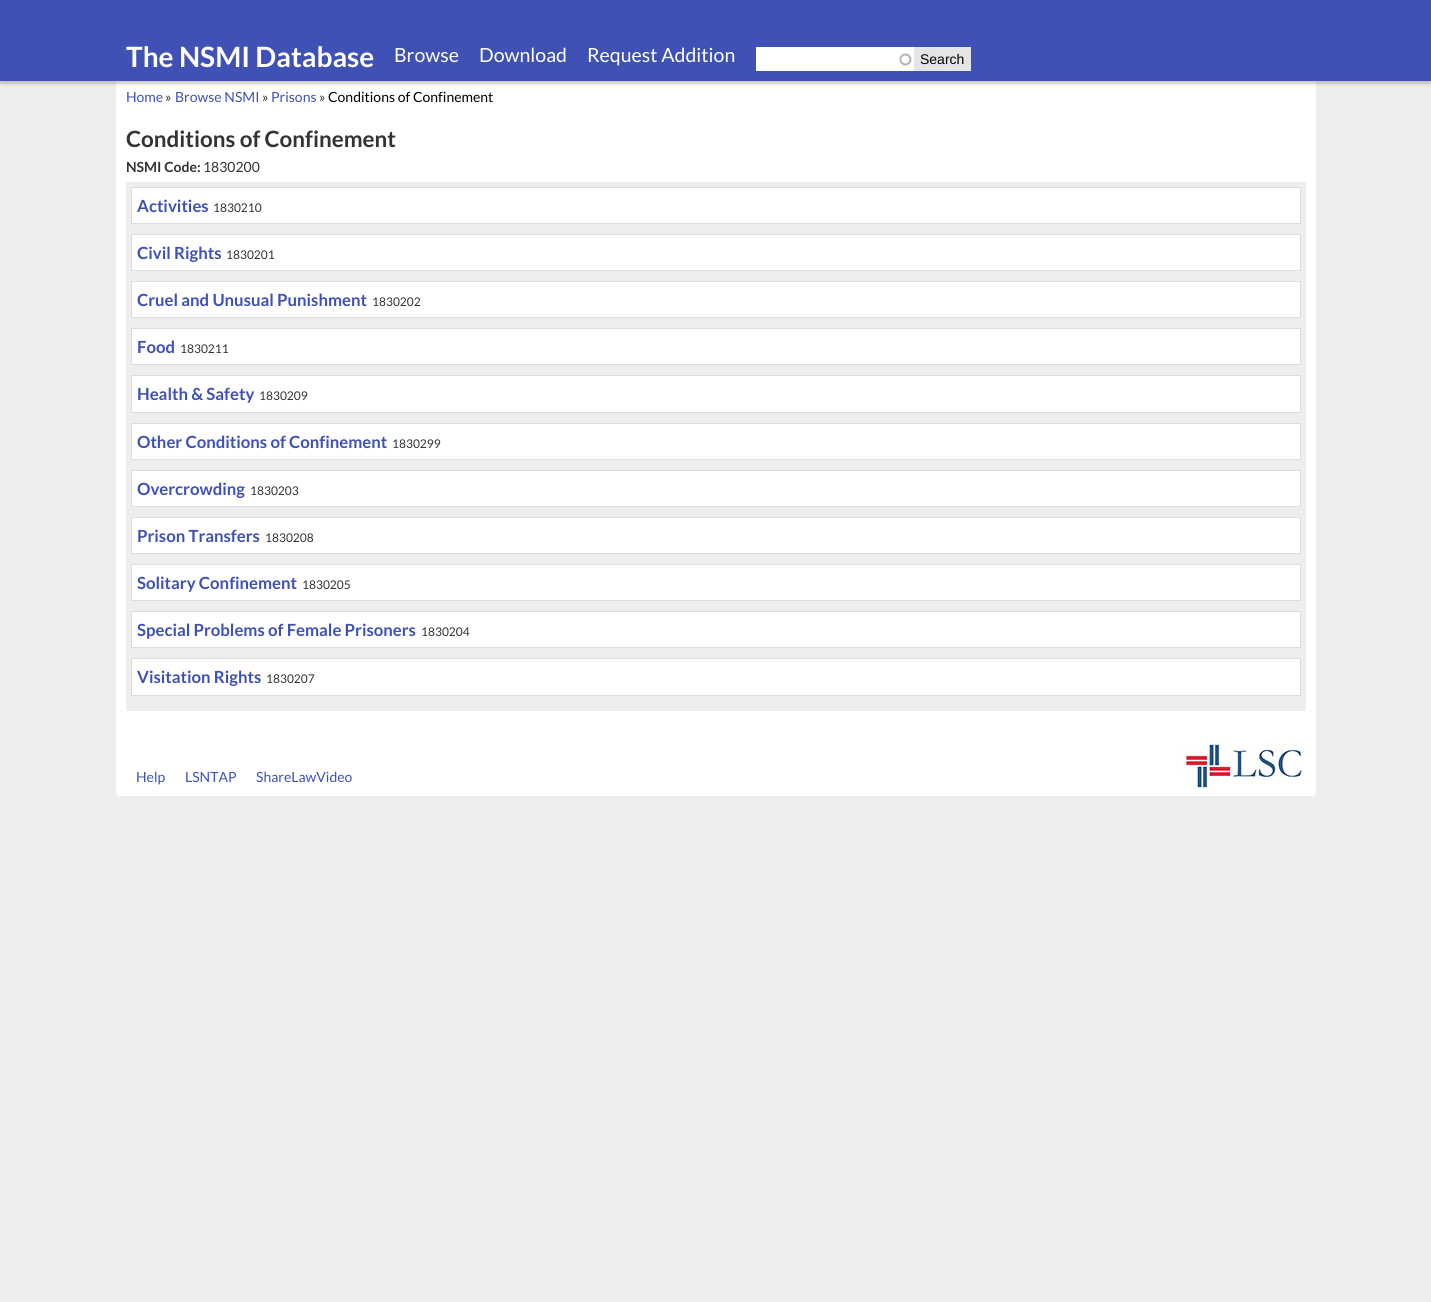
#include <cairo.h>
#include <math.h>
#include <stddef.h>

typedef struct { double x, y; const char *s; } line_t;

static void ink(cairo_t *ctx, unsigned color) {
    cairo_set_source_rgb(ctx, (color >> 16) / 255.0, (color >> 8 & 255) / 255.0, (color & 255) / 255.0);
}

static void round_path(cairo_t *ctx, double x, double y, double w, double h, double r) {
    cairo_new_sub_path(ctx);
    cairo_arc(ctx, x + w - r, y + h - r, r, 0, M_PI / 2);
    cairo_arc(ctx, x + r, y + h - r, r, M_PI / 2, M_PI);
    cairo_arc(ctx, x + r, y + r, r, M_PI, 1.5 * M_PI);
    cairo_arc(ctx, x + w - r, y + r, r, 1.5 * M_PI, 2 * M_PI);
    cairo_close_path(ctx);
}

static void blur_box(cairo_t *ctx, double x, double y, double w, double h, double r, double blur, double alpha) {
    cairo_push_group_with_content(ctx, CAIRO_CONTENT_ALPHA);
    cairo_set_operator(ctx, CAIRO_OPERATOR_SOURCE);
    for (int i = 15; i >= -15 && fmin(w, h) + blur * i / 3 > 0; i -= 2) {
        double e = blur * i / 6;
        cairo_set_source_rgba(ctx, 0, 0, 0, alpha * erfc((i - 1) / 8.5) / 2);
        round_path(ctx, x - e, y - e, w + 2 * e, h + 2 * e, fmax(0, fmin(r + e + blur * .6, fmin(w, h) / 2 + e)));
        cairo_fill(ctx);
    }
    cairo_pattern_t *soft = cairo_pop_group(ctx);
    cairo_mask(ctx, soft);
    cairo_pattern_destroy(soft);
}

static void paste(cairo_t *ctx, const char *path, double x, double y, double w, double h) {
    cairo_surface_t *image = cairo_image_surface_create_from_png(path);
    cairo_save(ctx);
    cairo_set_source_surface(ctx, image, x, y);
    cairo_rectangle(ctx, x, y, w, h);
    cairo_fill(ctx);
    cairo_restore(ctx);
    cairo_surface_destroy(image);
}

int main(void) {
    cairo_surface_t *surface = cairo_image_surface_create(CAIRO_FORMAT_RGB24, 1431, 1302);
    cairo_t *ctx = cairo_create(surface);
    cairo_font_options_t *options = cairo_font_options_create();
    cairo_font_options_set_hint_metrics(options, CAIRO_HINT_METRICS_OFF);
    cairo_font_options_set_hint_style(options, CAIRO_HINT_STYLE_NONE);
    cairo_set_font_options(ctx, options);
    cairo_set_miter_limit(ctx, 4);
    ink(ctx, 0xEEEEEE);
    cairo_paint(ctx);
    ink(ctx, 0xFFFFFF);
    cairo_rectangle(ctx, 116, 81, 1200, 660);
    cairo_fill(ctx);
    ink(ctx, 0x323232);
    blur_box(ctx, 0, 3, 1431, 81, 0, 1.5, 0.25);
    ink(ctx, 0x3F51B5);
    cairo_rectangle(ctx, 0, 0, 1431, 81);
    cairo_fill(ctx);
    cairo_select_font_face(ctx, "Lato", CAIRO_FONT_SLANT_NORMAL, CAIRO_FONT_WEIGHT_BOLD);
    cairo_set_font_size(ctx, 28);
    ink(ctx, 0xFFFFFF);
    cairo_move_to(ctx, 126, 67);
    cairo_show_text(ctx, "The NSMI Database");
    cairo_select_font_face(ctx, "Lato", CAIRO_FONT_SLANT_NORMAL, CAIRO_FONT_WEIGHT_NORMAL);
    cairo_set_font_size(ctx, 19.5);
    {
        static const line_t items[] = {
            {394, 62, "Browse"},
            {479, 62, "Download"},
            {587, 62, "Request Addition"},
        };
        for (size_t i = 0; i < sizeof items / sizeof *items; i++) {
            cairo_move_to(ctx, items[i].x, items[i].y);
            cairo_show_text(ctx, items[i].s);
        }
    }
    cairo_rectangle(ctx, 756, 47, 158, 24);
    cairo_fill(ctx);
    paste(ctx, "media/1.png", 899, 53, 13, 13);
    ink(ctx, 0xE5E5E5);
    cairo_rectangle(ctx, 914, 47, 57, 24);
    cairo_fill(ctx);
    cairo_select_font_face(ctx, "Liberation Sans", CAIRO_FONT_SLANT_NORMAL, CAIRO_FONT_WEIGHT_NORMAL);
    cairo_set_font_size(ctx, 14);
    ink(ctx, 0x000000);
    cairo_move_to(ctx, 920, 64);
    cairo_show_text(ctx, "Search");
    cairo_select_font_face(ctx, "Lato", CAIRO_FONT_SLANT_NORMAL, CAIRO_FONT_WEIGHT_NORMAL);
    ink(ctx, 0x3F51B5);
    cairo_move_to(ctx, 126, 102);
    cairo_show_text(ctx, "Home");
    ink(ctx, 0x333333);
    cairo_move_to(ctx, 165, 102);
    cairo_show_text(ctx, "»");
    ink(ctx, 0x3F51B5);
    cairo_move_to(ctx, 175, 102);
    cairo_show_text(ctx, "Browse NSMI");
    ink(ctx, 0x333333);
    cairo_move_to(ctx, 262, 102);
    cairo_show_text(ctx, "»");
    ink(ctx, 0x3F51B5);
    cairo_move_to(ctx, 271, 102);
    cairo_show_text(ctx, "Prisons");
    ink(ctx, 0x333333);
    cairo_move_to(ctx, 319, 102);
    cairo_show_text(ctx, "»");
    ink(ctx, 0x000000);
    cairo_move_to(ctx, 328, 102);
    cairo_show_text(ctx, "Conditions of Confinement");
    cairo_select_font_face(ctx, "Lato", CAIRO_FONT_SLANT_NORMAL, CAIRO_FONT_WEIGHT_BOLD);
    cairo_set_font_size(ctx, 22.4);
    ink(ctx, 0x333333);
    cairo_move_to(ctx, 126, 147);
    cairo_show_text(ctx, "Conditions of Confinement");
    cairo_set_font_size(ctx, 14);
    cairo_move_to(ctx, 126, 172);
    cairo_show_text(ctx, "NSMI Code:");
    cairo_select_font_face(ctx, "Lato", CAIRO_FONT_SLANT_NORMAL, CAIRO_FONT_WEIGHT_NORMAL);
    cairo_move_to(ctx, 203, 172);
    cairo_show_text(ctx, "1830200");
    ink(ctx, 0xEEEEEE);
    cairo_rectangle(ctx, 126, 182, 1180, 529);
    cairo_fill(ctx);
    cairo_rectangle(ctx, 131.5, 187.5, 1169, 36);
    ink(ctx, 0xDDDDDD);
    cairo_set_line_width(ctx, 1);
    cairo_stroke(ctx);
    ink(ctx, 0xFFFFFF);
    cairo_rectangle(ctx, 132, 188, 1168, 35);
    cairo_fill(ctx);
    cairo_select_font_face(ctx, "Lato", CAIRO_FONT_SLANT_NORMAL, CAIRO_FONT_WEIGHT_BOLD);
    cairo_set_font_size(ctx, 16.75);
    ink(ctx, 0x3F51B5);
    cairo_move_to(ctx, 137, 212);
    cairo_show_text(ctx, "Activities");
    cairo_select_font_face(ctx, "Lato", CAIRO_FONT_SLANT_NORMAL, CAIRO_FONT_WEIGHT_NORMAL);
    cairo_set_font_size(ctx, 12);
    ink(ctx, 0x333333);
    cairo_move_to(ctx, 213, 212);
    cairo_show_text(ctx, "1830210");
    cairo_rectangle(ctx, 131.5, 234.5, 1169, 36);
    ink(ctx, 0xDDDDDD);
    cairo_stroke(ctx);
    ink(ctx, 0xFFFFFF);
    cairo_rectangle(ctx, 132, 235, 1168, 35);
    cairo_fill(ctx);
    cairo_select_font_face(ctx, "Lato", CAIRO_FONT_SLANT_NORMAL, CAIRO_FONT_WEIGHT_BOLD);
    cairo_set_font_size(ctx, 16.75);
    ink(ctx, 0x3F51B5);
    cairo_move_to(ctx, 137, 259);
    cairo_show_text(ctx, "Civil Rights");
    cairo_select_font_face(ctx, "Lato", CAIRO_FONT_SLANT_NORMAL, CAIRO_FONT_WEIGHT_NORMAL);
    cairo_set_font_size(ctx, 12);
    ink(ctx, 0x333333);
    cairo_move_to(ctx, 226, 259);
    cairo_show_text(ctx, "1830201");
    cairo_rectangle(ctx, 131.5, 281.5, 1169, 36);
    ink(ctx, 0xDDDDDD);
    cairo_stroke(ctx);
    ink(ctx, 0xFFFFFF);
    cairo_rectangle(ctx, 132, 282, 1168, 35);
    cairo_fill(ctx);
    cairo_select_font_face(ctx, "Lato", CAIRO_FONT_SLANT_NORMAL, CAIRO_FONT_WEIGHT_BOLD);
    cairo_set_font_size(ctx, 16.75);
    ink(ctx, 0x3F51B5);
    cairo_move_to(ctx, 137, 306);
    cairo_show_text(ctx, "Cruel and Unusual Punishment");
    cairo_select_font_face(ctx, "Lato", CAIRO_FONT_SLANT_NORMAL, CAIRO_FONT_WEIGHT_NORMAL);
    cairo_set_font_size(ctx, 12);
    ink(ctx, 0x333333);
    cairo_move_to(ctx, 372, 306);
    cairo_show_text(ctx, "1830202");
    cairo_rectangle(ctx, 131.5, 328.5, 1169, 36);
    ink(ctx, 0xDDDDDD);
    cairo_stroke(ctx);
    ink(ctx, 0xFFFFFF);
    cairo_rectangle(ctx, 132, 329, 1168, 35);
    cairo_fill(ctx);
    cairo_select_font_face(ctx, "Lato", CAIRO_FONT_SLANT_NORMAL, CAIRO_FONT_WEIGHT_BOLD);
    cairo_set_font_size(ctx, 16.75);
    ink(ctx, 0x3F51B5);
    cairo_move_to(ctx, 137, 353);
    cairo_show_text(ctx, "Food");
    cairo_select_font_face(ctx, "Lato", CAIRO_FONT_SLANT_NORMAL, CAIRO_FONT_WEIGHT_NORMAL);
    cairo_set_font_size(ctx, 12);
    ink(ctx, 0x333333);
    cairo_move_to(ctx, 180, 353);
    cairo_show_text(ctx, "1830211");
    cairo_rectangle(ctx, 131.5, 375.5, 1169, 37);
    ink(ctx, 0xDDDDDD);
    cairo_stroke(ctx);
    ink(ctx, 0xFFFFFF);
    cairo_rectangle(ctx, 132, 376, 1168, 36);
    cairo_fill(ctx);
    cairo_select_font_face(ctx, "Lato", CAIRO_FONT_SLANT_NORMAL, CAIRO_FONT_WEIGHT_BOLD);
    cairo_set_font_size(ctx, 16.75);
    ink(ctx, 0x3F51B5);
    cairo_move_to(ctx, 137, 400);
    cairo_show_text(ctx, "Health & Safety");
    cairo_select_font_face(ctx, "Lato", CAIRO_FONT_SLANT_NORMAL, CAIRO_FONT_WEIGHT_NORMAL);
    cairo_set_font_size(ctx, 12);
    ink(ctx, 0x333333);
    cairo_move_to(ctx, 259, 400);
    cairo_show_text(ctx, "1830209");
    cairo_rectangle(ctx, 131.5, 423.5, 1169, 36);
    ink(ctx, 0xDDDDDD);
    cairo_stroke(ctx);
    ink(ctx, 0xFFFFFF);
    cairo_rectangle(ctx, 132, 424, 1168, 35);
    cairo_fill(ctx);
    cairo_select_font_face(ctx, "Lato", CAIRO_FONT_SLANT_NORMAL, CAIRO_FONT_WEIGHT_BOLD);
    cairo_set_font_size(ctx, 16.75);
    ink(ctx, 0x3F51B5);
    cairo_move_to(ctx, 137, 448);
    cairo_show_text(ctx, "Other Conditions of Confinement");
    cairo_select_font_face(ctx, "Lato", CAIRO_FONT_SLANT_NORMAL, CAIRO_FONT_WEIGHT_NORMAL);
    cairo_set_font_size(ctx, 12);
    ink(ctx, 0x333333);
    cairo_move_to(ctx, 392, 448);
    cairo_show_text(ctx, "1830299");
    cairo_rectangle(ctx, 131.5, 470.5, 1169, 36);
    ink(ctx, 0xDDDDDD);
    cairo_stroke(ctx);
    ink(ctx, 0xFFFFFF);
    cairo_rectangle(ctx, 132, 471, 1168, 35);
    cairo_fill(ctx);
    cairo_select_font_face(ctx, "Lato", CAIRO_FONT_SLANT_NORMAL, CAIRO_FONT_WEIGHT_BOLD);
    cairo_set_font_size(ctx, 16.75);
    ink(ctx, 0x3F51B5);
    cairo_move_to(ctx, 137, 495);
    cairo_show_text(ctx, "Overcrowding");
    cairo_select_font_face(ctx, "Lato", CAIRO_FONT_SLANT_NORMAL, CAIRO_FONT_WEIGHT_NORMAL);
    cairo_set_font_size(ctx, 12);
    ink(ctx, 0x333333);
    cairo_move_to(ctx, 250, 495);
    cairo_show_text(ctx, "1830203");
    cairo_rectangle(ctx, 131.5, 517.5, 1169, 36);
    ink(ctx, 0xDDDDDD);
    cairo_stroke(ctx);
    ink(ctx, 0xFFFFFF);
    cairo_rectangle(ctx, 132, 518, 1168, 35);
    cairo_fill(ctx);
    cairo_select_font_face(ctx, "Lato", CAIRO_FONT_SLANT_NORMAL, CAIRO_FONT_WEIGHT_BOLD);
    cairo_set_font_size(ctx, 16.75);
    ink(ctx, 0x3F51B5);
    cairo_move_to(ctx, 137, 542);
    cairo_show_text(ctx, "Prison Transfers");
    cairo_select_font_face(ctx, "Lato", CAIRO_FONT_SLANT_NORMAL, CAIRO_FONT_WEIGHT_NORMAL);
    cairo_set_font_size(ctx, 12);
    ink(ctx, 0x333333);
    cairo_move_to(ctx, 265, 542);
    cairo_show_text(ctx, "1830208");
    cairo_rectangle(ctx, 131.5, 564.5, 1169, 36);
    ink(ctx, 0xDDDDDD);
    cairo_stroke(ctx);
    ink(ctx, 0xFFFFFF);
    cairo_rectangle(ctx, 132, 565, 1168, 35);
    cairo_fill(ctx);
    cairo_select_font_face(ctx, "Lato", CAIRO_FONT_SLANT_NORMAL, CAIRO_FONT_WEIGHT_BOLD);
    cairo_set_font_size(ctx, 16.75);
    ink(ctx, 0x3F51B5);
    cairo_move_to(ctx, 137, 589);
    cairo_show_text(ctx, "Solitary Confinement");
    cairo_select_font_face(ctx, "Lato", CAIRO_FONT_SLANT_NORMAL, CAIRO_FONT_WEIGHT_NORMAL);
    cairo_set_font_size(ctx, 12);
    ink(ctx, 0x333333);
    cairo_move_to(ctx, 302, 589);
    cairo_show_text(ctx, "1830205");
    cairo_rectangle(ctx, 131.5, 611.5, 1169, 36);
    ink(ctx, 0xDDDDDD);
    cairo_stroke(ctx);
    ink(ctx, 0xFFFFFF);
    cairo_rectangle(ctx, 132, 612, 1168, 35);
    cairo_fill(ctx);
    cairo_select_font_face(ctx, "Lato", CAIRO_FONT_SLANT_NORMAL, CAIRO_FONT_WEIGHT_BOLD);
    cairo_set_font_size(ctx, 16.75);
    ink(ctx, 0x3F51B5);
    cairo_move_to(ctx, 137, 636);
    cairo_show_text(ctx, "Special Problems of Female Prisoners");
    cairo_select_font_face(ctx, "Lato", CAIRO_FONT_SLANT_NORMAL, CAIRO_FONT_WEIGHT_NORMAL);
    cairo_set_font_size(ctx, 12);
    ink(ctx, 0x333333);
    cairo_move_to(ctx, 421, 636);
    cairo_show_text(ctx, "1830204");
    cairo_rectangle(ctx, 131.5, 658.5, 1169, 37);
    ink(ctx, 0xDDDDDD);
    cairo_stroke(ctx);
    ink(ctx, 0xFFFFFF);
    cairo_rectangle(ctx, 132, 659, 1168, 36);
    cairo_fill(ctx);
    cairo_select_font_face(ctx, "Lato", CAIRO_FONT_SLANT_NORMAL, CAIRO_FONT_WEIGHT_BOLD);
    cairo_set_font_size(ctx, 16.75);
    ink(ctx, 0x3F51B5);
    cairo_move_to(ctx, 137, 683);
    cairo_show_text(ctx, "Visitation Rights");
    cairo_select_font_face(ctx, "Lato", CAIRO_FONT_SLANT_NORMAL, CAIRO_FONT_WEIGHT_NORMAL);
    cairo_set_font_size(ctx, 12);
    ink(ctx, 0x333333);
    cairo_move_to(ctx, 266, 683);
    cairo_show_text(ctx, "1830207");
    ink(ctx, 0xFFFFFF);
    cairo_new_path(ctx);
    cairo_move_to(ctx, 116, 741);
    cairo_line_to(ctx, 1316, 741);
    cairo_line_to(ctx, 1316, 793);
    cairo_curve_to(ctx, 1316, 794.5, 1314.5, 796, 1313, 796);
    cairo_line_to(ctx, 119, 796);
    cairo_curve_to(ctx, 117.5, 796, 116, 794.5, 116, 793);
    cairo_close_path(ctx);
    cairo_fill(ctx);
    cairo_set_font_size(ctx, 14);
    ink(ctx, 0x3F51B5);
    {
        static const line_t items[] = {
            {136, 782, "Help"},
            {185, 782, "LSNTAP"},
            {256, 782, "ShareLawVideo"},
        };
        for (size_t i = 0; i < sizeof items / sizeof *items; i++) {
            cairo_move_to(ctx, items[i].x, items[i].y);
            cairo_show_text(ctx, items[i].s);
        }
    }
    paste(ctx, "media/2.png", 1182, 741, 120, 48);
    cairo_surface_write_to_png(surface, "image.png");
    cairo_font_options_destroy(options);
    cairo_destroy(ctx);
    cairo_surface_destroy(surface);
    return 0;
}
